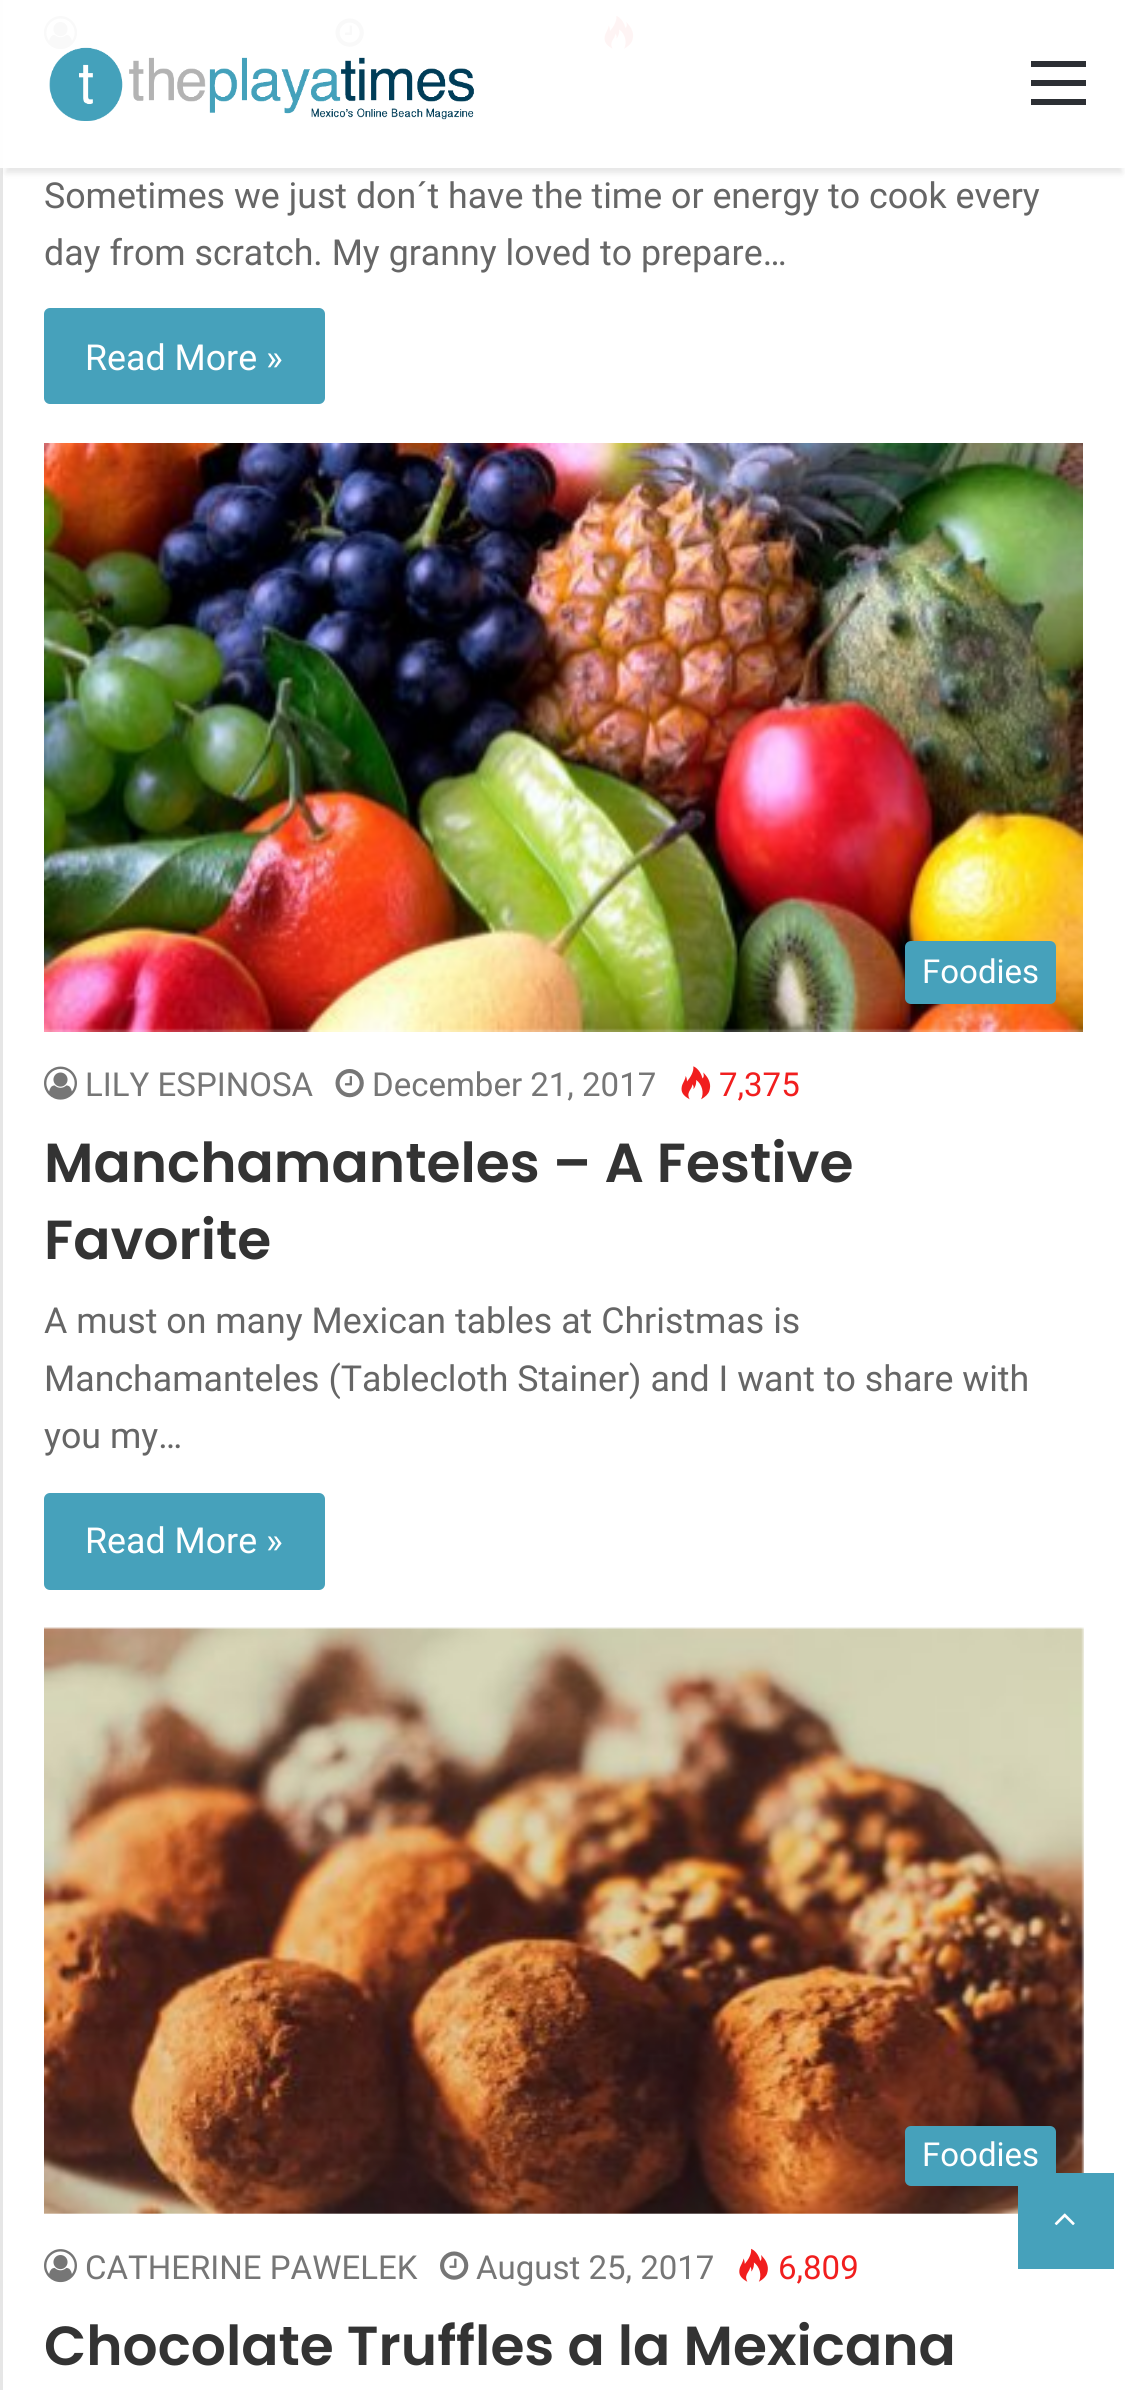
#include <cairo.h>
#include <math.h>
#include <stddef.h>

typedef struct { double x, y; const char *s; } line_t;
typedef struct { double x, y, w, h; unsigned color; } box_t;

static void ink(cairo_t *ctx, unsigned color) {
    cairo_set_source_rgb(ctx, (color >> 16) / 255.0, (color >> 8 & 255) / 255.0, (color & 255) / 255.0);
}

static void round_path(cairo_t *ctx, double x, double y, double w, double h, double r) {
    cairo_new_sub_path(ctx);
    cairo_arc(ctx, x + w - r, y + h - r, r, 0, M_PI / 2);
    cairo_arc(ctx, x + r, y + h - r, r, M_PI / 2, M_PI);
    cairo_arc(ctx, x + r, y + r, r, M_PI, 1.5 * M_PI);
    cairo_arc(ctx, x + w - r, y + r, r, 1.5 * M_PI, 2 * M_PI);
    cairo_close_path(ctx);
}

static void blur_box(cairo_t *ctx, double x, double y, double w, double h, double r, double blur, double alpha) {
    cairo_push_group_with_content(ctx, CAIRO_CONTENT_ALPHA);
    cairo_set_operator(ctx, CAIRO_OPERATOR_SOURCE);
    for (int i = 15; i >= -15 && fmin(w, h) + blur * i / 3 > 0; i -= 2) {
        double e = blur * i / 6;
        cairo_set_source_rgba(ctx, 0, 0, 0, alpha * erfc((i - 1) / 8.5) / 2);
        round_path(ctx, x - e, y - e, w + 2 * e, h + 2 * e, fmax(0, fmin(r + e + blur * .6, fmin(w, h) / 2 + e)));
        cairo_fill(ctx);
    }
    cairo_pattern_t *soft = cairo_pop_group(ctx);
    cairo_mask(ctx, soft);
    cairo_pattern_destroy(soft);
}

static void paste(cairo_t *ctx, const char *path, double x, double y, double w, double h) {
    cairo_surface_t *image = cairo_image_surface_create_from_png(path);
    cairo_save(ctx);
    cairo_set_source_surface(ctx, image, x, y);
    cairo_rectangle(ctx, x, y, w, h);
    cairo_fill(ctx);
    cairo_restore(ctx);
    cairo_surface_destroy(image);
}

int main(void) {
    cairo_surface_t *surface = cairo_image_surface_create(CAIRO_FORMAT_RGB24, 1125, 2390);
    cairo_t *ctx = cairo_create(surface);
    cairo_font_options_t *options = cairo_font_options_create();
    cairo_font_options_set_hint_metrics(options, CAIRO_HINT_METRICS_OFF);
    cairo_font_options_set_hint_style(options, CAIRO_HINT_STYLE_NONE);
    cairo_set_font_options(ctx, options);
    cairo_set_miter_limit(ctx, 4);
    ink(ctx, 0xFFFFFF);
    cairo_paint(ctx);
    ink(ctx, 0xE6E6E6);
    cairo_rectangle(ctx, 0, 0, 3, 2390);
    cairo_fill(ctx);
    paste(ctx, "media/2.png", 44, 16, 33, 34);
    paste(ctx, "media/3.png", 335, 18, 29, 29);
    paste(ctx, "media/4.png", 604, 15, 30, 34);
    cairo_save(ctx);
    cairo_set_fill_rule(ctx, CAIRO_FILL_RULE_EVEN_ODD);
    cairo_new_path(ctx);
    cairo_move_to(ctx, 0, 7);
    cairo_line_to(ctx, 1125, 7);
    cairo_line_to(ctx, 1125, 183);
    cairo_line_to(ctx, 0, 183);
    cairo_close_path(ctx);
    cairo_move_to(ctx, 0, 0);
    cairo_line_to(ctx, 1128, 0);
    cairo_line_to(ctx, 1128, 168);
    cairo_line_to(ctx, 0, 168);
    cairo_close_path(ctx);
    cairo_clip(ctx);
    ink(ctx, 0x000000);
    blur_box(ctx, 6, 17, 1116, 156, 0, 3, 0.1);
    cairo_restore(ctx);
    cairo_set_source_rgba(ctx, 1, 1, 1, 0.95);
    cairo_rectangle(ctx, 0, 0, 1122, 168);
    cairo_fill(ctx);
    paste(ctx, "media/1.png", 49, 47, 425, 74);
    {
        static const box_t items[] = {
            {1031, 80, 55, 6, 0x2C2F34},
            {1031, 61, 55, 6, 0x2C2F34},
            {1031, 99, 55, 6, 0x2C2F34},
        };
        for (size_t i = 0; i < sizeof items / sizeof *items; i++) {
            ink(ctx, items[i].color);
            cairo_rectangle(ctx, items[i].x, items[i].y, items[i].w, items[i].h);
            cairo_fill(ctx);
        }
    }
    cairo_select_font_face(ctx, "Roboto", CAIRO_FONT_SLANT_NORMAL, CAIRO_FONT_WEIGHT_NORMAL);
    cairo_set_font_size(ctx, 35.75);
    ink(ctx, 0x666666);
    cairo_move_to(ctx, 44, 208);
    cairo_show_text(ctx, "Sometimes we just don´t have the time or energy to cook every");
    cairo_move_to(ctx, 44, 265);
    cairo_show_text(ctx, "day from scratch. My granny loved to prepare…");
    ink(ctx, 0x46A1BB);
    round_path(ctx, 44, 308, 281, 96, 6);
    cairo_fill(ctx);
    ink(ctx, 0xFFFFFF);
    cairo_move_to(ctx, 85, 370);
    cairo_show_text(ctx, "Read More »");
    paste(ctx, "media/5.png", 44, 443, 1039, 589);
    ink(ctx, 0x46A1BB);
    round_path(ctx, 905, 941, 151, 63, 6);
    cairo_fill(ctx);
    cairo_set_font_size(ctx, 33);
    ink(ctx, 0xFFFFFF);
    cairo_move_to(ctx, 922, 983);
    cairo_show_text(ctx, "Foodies");
    paste(ctx, "media/6.png", 44, 1066, 33, 34);
    ink(ctx, 0x767676);
    cairo_move_to(ctx, 85, 1096);
    cairo_show_text(ctx, "LILY ESPINOSA");
    paste(ctx, "media/7.png", 335, 1069, 29, 29);
    cairo_move_to(ctx, 372, 1096);
    cairo_show_text(ctx, "December 21, 2017");
    paste(ctx, "media/8.png", 681, 1066, 30, 34);
    ink(ctx, 0xF11E1E);
    cairo_move_to(ctx, 719, 1096);
    cairo_show_text(ctx, "7,375");
    cairo_select_font_face(ctx, "Poppins SemiBold", CAIRO_FONT_SLANT_NORMAL, CAIRO_FONT_WEIGHT_NORMAL);
    cairo_set_font_size(ctx, 55);
    ink(ctx, 0x333333);
    cairo_move_to(ctx, 44, 1182);
    cairo_show_text(ctx, "Manchamanteles – A Festive");
    cairo_move_to(ctx, 44, 1259);
    cairo_show_text(ctx, "Favorite");
    cairo_select_font_face(ctx, "Roboto", CAIRO_FONT_SLANT_NORMAL, CAIRO_FONT_WEIGHT_NORMAL);
    cairo_set_font_size(ctx, 35.75);
    ink(ctx, 0x666666);
    {
        static const line_t items[] = {
            {44, 1333, "A must on many Mexican tables at Christmas is"},
            {44, 1391, "Manchamanteles (Tablecloth Stainer) and I want to share with"},
            {44, 1448, "you my…"},
        };
        for (size_t i = 0; i < sizeof items / sizeof *items; i++) {
            cairo_move_to(ctx, items[i].x, items[i].y);
            cairo_show_text(ctx, items[i].s);
        }
    }
    ink(ctx, 0x46A1BB);
    round_path(ctx, 44, 1493, 281, 97, 6);
    cairo_fill(ctx);
    ink(ctx, 0xFFFFFF);
    cairo_move_to(ctx, 85, 1553);
    cairo_show_text(ctx, "Read More »");
    paste(ctx, "media/9.png", 44, 1627, 1040, 587);
    ink(ctx, 0x46A1BB);
    round_path(ctx, 905, 2126, 151, 60, 6);
    cairo_fill(ctx);
    cairo_set_font_size(ctx, 33);
    ink(ctx, 0xFFFFFF);
    cairo_move_to(ctx, 922, 2166);
    cairo_show_text(ctx, "Foodies");
    paste(ctx, "media/2.png", 44, 2249, 33, 34);
    ink(ctx, 0x767676);
    cairo_move_to(ctx, 85, 2279);
    cairo_show_text(ctx, "CATHERINE PAWELEK");
    paste(ctx, "media/10.png", 440, 2251, 29, 29);
    cairo_move_to(ctx, 476, 2279);
    cairo_show_text(ctx, "August 25, 2017");
    paste(ctx, "media/11.png", 739, 2248, 29, 34);
    ink(ctx, 0xF11E1E);
    cairo_move_to(ctx, 778, 2279);
    cairo_show_text(ctx, "6,809");
    cairo_select_font_face(ctx, "Poppins SemiBold", CAIRO_FONT_SLANT_NORMAL, CAIRO_FONT_WEIGHT_NORMAL);
    cairo_set_font_size(ctx, 55);
    ink(ctx, 0x333333);
    cairo_move_to(ctx, 44, 2365);
    cairo_show_text(ctx, "Chocolate Truffles a la Mexicana");
    ink(ctx, 0x46A1BB);
    cairo_rectangle(ctx, 1018, 2173, 96, 96);
    cairo_fill(ctx);
    paste(ctx, "media/12.png", 1054, 2213, 21, 13);
    cairo_surface_write_to_png(surface, "image.png");
    cairo_font_options_destroy(options);
    cairo_destroy(ctx);
    cairo_surface_destroy(surface);
    return 0;
}
